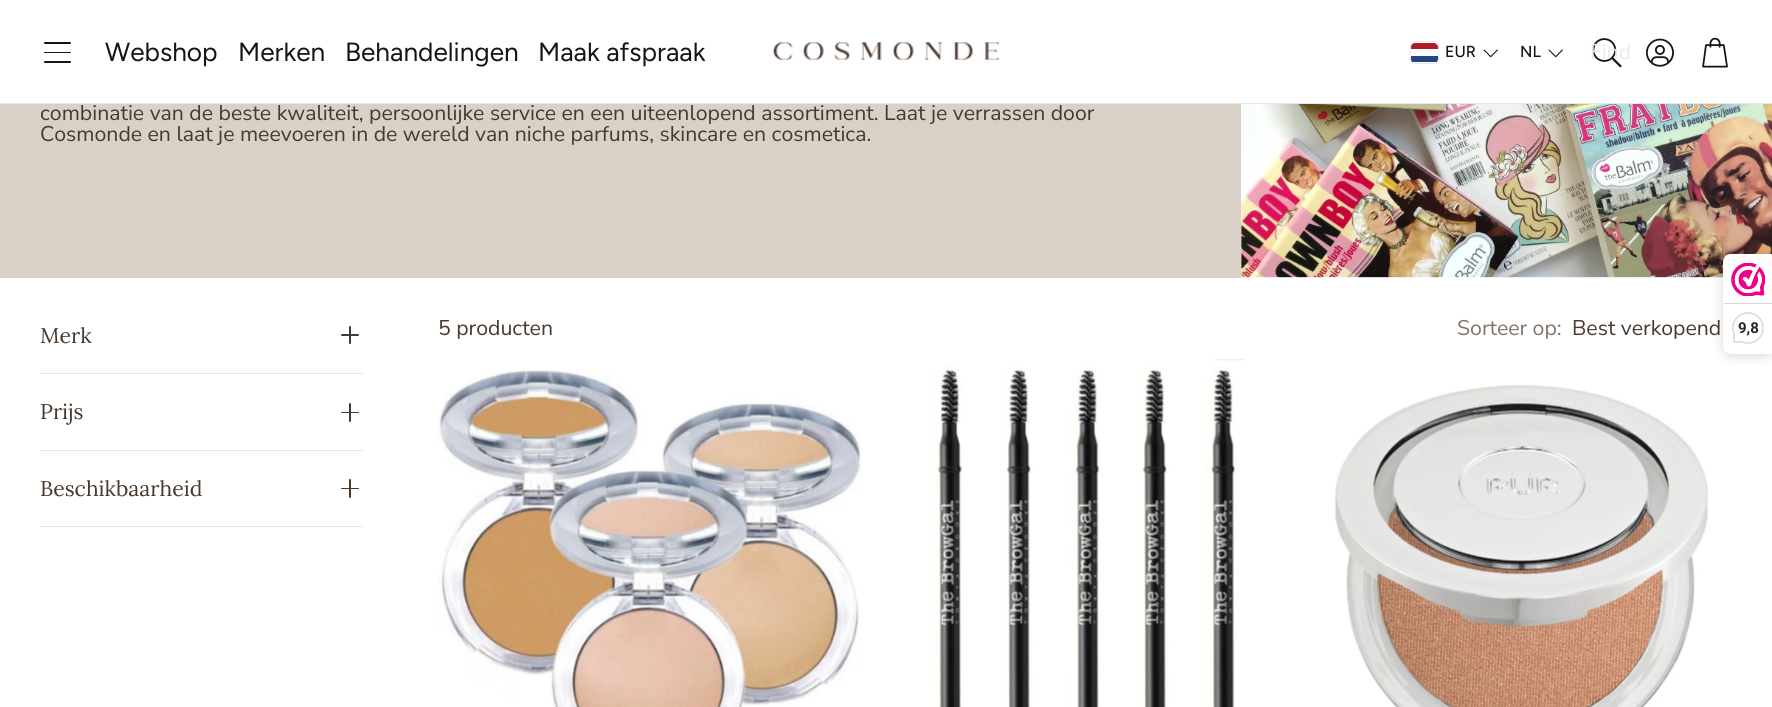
#include <cairo.h>
#include <math.h>
#include <stddef.h>

typedef struct { double x, y; const char *s; } line_t;

static void ink(cairo_t *ctx, unsigned color) {
    cairo_set_source_rgb(ctx, (color >> 16) / 255.0, (color >> 8 & 255) / 255.0, (color & 255) / 255.0);
}

static void round_path(cairo_t *ctx, double x, double y, double w, double h, double r) {
    cairo_new_sub_path(ctx);
    cairo_arc(ctx, x + w - r, y + h - r, r, 0, M_PI / 2);
    cairo_arc(ctx, x + r, y + h - r, r, M_PI / 2, M_PI);
    cairo_arc(ctx, x + r, y + r, r, M_PI, 1.5 * M_PI);
    cairo_arc(ctx, x + w - r, y + r, r, 1.5 * M_PI, 2 * M_PI);
    cairo_close_path(ctx);
}

static void blur_box(cairo_t *ctx, double x, double y, double w, double h, double r, double blur, double alpha) {
    cairo_push_group_with_content(ctx, CAIRO_CONTENT_ALPHA);
    cairo_set_operator(ctx, CAIRO_OPERATOR_SOURCE);
    for (int i = 15; i >= -15 && fmin(w, h) + blur * i / 3 > 0; i -= 2) {
        double e = blur * i / 6;
        cairo_set_source_rgba(ctx, 0, 0, 0, alpha * erfc((i - 1) / 8.5) / 2);
        round_path(ctx, x - e, y - e, w + 2 * e, h + 2 * e, fmax(0, fmin(r + e + blur * .6, fmin(w, h) / 2 + e)));
        cairo_fill(ctx);
    }
    cairo_pattern_t *soft = cairo_pop_group(ctx);
    cairo_mask(ctx, soft);
    cairo_pattern_destroy(soft);
}

static void paste(cairo_t *ctx, const char *path, double x, double y, double w, double h) {
    cairo_surface_t *image = cairo_image_surface_create_from_png(path);
    cairo_save(ctx);
    cairo_set_source_surface(ctx, image, x, y);
    cairo_rectangle(ctx, x, y, w, h);
    cairo_fill(ctx);
    cairo_restore(ctx);
    cairo_surface_destroy(image);
}

int main(void) {
    cairo_surface_t *surface = cairo_image_surface_create(CAIRO_FORMAT_RGB24, 1772, 707);
    cairo_t *ctx = cairo_create(surface);
    cairo_font_options_t *options = cairo_font_options_create();
    cairo_font_options_set_hint_metrics(options, CAIRO_HINT_METRICS_OFF);
    cairo_font_options_set_hint_style(options, CAIRO_HINT_STYLE_NONE);
    cairo_set_font_options(ctx, options);
    cairo_set_miter_limit(ctx, 4);
    ink(ctx, 0xFFFFFF);
    cairo_paint(ctx);
    ink(ctx, 0xE7E7E7);
    cairo_rectangle(ctx, 0, 103, 1772, 1);
    cairo_fill(ctx);
    ink(ctx, 0x151515);
    round_path(ctx, 44, 42, 27, 2, 1);
    cairo_fill(ctx);
    round_path(ctx, 44, 52, 27, 1, 0.5);
    cairo_fill(ctx);
    round_path(ctx, 44, 61, 27, 2, 1);
    cairo_fill(ctx);
    cairo_select_font_face(ctx, "Figtree", CAIRO_FONT_SLANT_NORMAL, CAIRO_FONT_WEIGHT_NORMAL);
    cairo_set_font_size(ctx, 26.25);
    {
        static const line_t items[] = {
            {105, 61, "Webshop"},
            {238, 61, "Merken"},
            {345, 61, "Behandelingen"},
            {538, 61, "Maak afspraak"},
        };
        for (size_t i = 0; i < sizeof items / sizeof *items; i++) {
            cairo_move_to(ctx, items[i].x, items[i].y);
            cairo_show_text(ctx, items[i].s);
        }
    }
    paste(ctx, "media/1.png", 773, 42, 226, 18);
    round_path(ctx, 1410.5, 41.5, 28, 22, 4.5);
    ink(ctx, 0xE7E7E7);
    cairo_set_line_width(ctx, 1);
    cairo_stroke(ctx);
    cairo_save(ctx);
    round_path(ctx, 1411, 43, 27, 20, 4);
    cairo_clip(ctx);
    ink(ctx, 0xFFFFFF);
    cairo_new_path(ctx);
    cairo_move_to(ctx, 1415, 43);
    cairo_line_to(ctx, 1434, 43);
    cairo_curve_to(ctx, 1436, 43, 1438, 45, 1438, 47);
    cairo_line_to(ctx, 1438, 62);
    cairo_line_to(ctx, 1411, 62);
    cairo_line_to(ctx, 1411, 47);
    cairo_curve_to(ctx, 1411, 45, 1413, 43, 1415, 43);
    cairo_close_path(ctx);
    cairo_fill(ctx);
    ink(ctx, 0x21468B);
    cairo_rectangle(ctx, 1411, 56, 27, 6);
    cairo_fill(ctx);
    cairo_restore(ctx);
    ink(ctx, 0xAE1C28);
    cairo_new_path(ctx);
    cairo_move_to(ctx, 1415, 43);
    cairo_line_to(ctx, 1434, 43);
    cairo_curve_to(ctx, 1436, 43, 1438, 45, 1438, 47);
    cairo_line_to(ctx, 1438, 49);
    cairo_line_to(ctx, 1411, 49);
    cairo_line_to(ctx, 1411, 47);
    cairo_curve_to(ctx, 1411, 45, 1413, 43, 1415, 43);
    cairo_close_path(ctx);
    cairo_fill(ctx);
    cairo_select_font_face(ctx, "Figtree Medium", CAIRO_FONT_SLANT_NORMAL, CAIRO_FONT_WEIGHT_NORMAL);
    cairo_set_font_size(ctx, 16);
    ink(ctx, 0x151515);
    cairo_move_to(ctx, 1445, 57);
    cairo_show_text(ctx, "EUR");
    paste(ctx, "media/2.png", 1483, 49, 15, 9);
    cairo_move_to(ctx, 1520, 57);
    cairo_show_text(ctx, "NL");
    paste(ctx, "media/2.png", 1548, 49, 15, 9);
    paste(ctx, "media/3.png", 1592, 38, 30, 30);
    cairo_select_font_face(ctx, "Nunito Sans", CAIRO_FONT_SLANT_NORMAL, CAIRO_FONT_WEIGHT_NORMAL);
    cairo_set_font_size(ctx, 21.25);
    ink(ctx, 0xEAEAEA);
    cairo_move_to(ctx, 1590, 59);
    cairo_show_text(ctx, "Find");
    paste(ctx, "media/4.png", 1645, 38, 29, 29);
    paste(ctx, "media/5.png", 1702, 37, 26, 31);
    ink(ctx, 0xD9D0C7);
    cairo_rectangle(ctx, 0, 104, 1241, 174);
    cairo_fill(ctx);
    ink(ctx, 0x48392E);
    cairo_move_to(ctx, 40, 120);
    cairo_show_text(ctx, "combinatie van de beste kwaliteit, persoonlijke service en een uiteenlopend assortiment. Laat je verrassen door");
    cairo_move_to(ctx, 40, 141);
    cairo_show_text(ctx, "Cosmonde en laat je meevoeren in de wereld van niche parfums, skincare en cosmetica.");
    paste(ctx, "media/6.png", 1241, 104, 531, 174);
    ink(ctx, 0xE7E7E7);
    cairo_rectangle(ctx, 40, 373, 323, 1);
    cairo_fill(ctx);
    cairo_select_font_face(ctx, "Lora", CAIRO_FONT_SLANT_NORMAL, CAIRO_FONT_WEIGHT_NORMAL);
    ink(ctx, 0x48392E);
    cairo_move_to(ctx, 40, 343);
    cairo_show_text(ctx, "Merk");
    round_path(ctx, 341, 334, 18, 2, 1);
    cairo_fill(ctx);
    round_path(ctx, 349, 326, 2, 18, 1);
    cairo_fill(ctx);
    ink(ctx, 0xE7E7E7);
    cairo_rectangle(ctx, 40, 450, 323, 1);
    cairo_fill(ctx);
    ink(ctx, 0x48392E);
    cairo_move_to(ctx, 40, 419);
    cairo_show_text(ctx, "Prijs");
    round_path(ctx, 341, 412, 18, 1, 0.5);
    cairo_fill(ctx);
    round_path(ctx, 349, 403, 2, 19, 1);
    cairo_fill(ctx);
    cairo_move_to(ctx, 40, 496);
    cairo_show_text(ctx, "Beschikbaarheid");
    round_path(ctx, 341, 488, 18, 1, 0.5);
    cairo_fill(ctx);
    round_path(ctx, 349, 479, 2, 19, 1);
    cairo_fill(ctx);
    ink(ctx, 0xE7E7E7);
    cairo_rectangle(ctx, 40, 526, 323, 1);
    cairo_fill(ctx);
    cairo_select_font_face(ctx, "Nunito Sans", CAIRO_FONT_SLANT_NORMAL, CAIRO_FONT_WEIGHT_NORMAL);
    ink(ctx, 0x48392E);
    cairo_move_to(ctx, 438, 335);
    cairo_show_text(ctx, "5 producten");
    ink(ctx, 0x7F746D);
    cairo_move_to(ctx, 1457, 335);
    cairo_show_text(ctx, "Sorteer op:");
    ink(ctx, 0x48392E);
    cairo_move_to(ctx, 1572, 335);
    cairo_show_text(ctx, "Best verkopend");
    paste(ctx, "media/7.png", 438, 370, 424, 337);
    paste(ctx, "media/8.png", 933, 359, 311, 348);
    paste(ctx, "media/9.png", 1335, 384, 374, 323);
    ink(ctx, 0x000000);
    blur_box(ctx, 1723, 256, 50, 100, 8, 6, 0.15);
    ink(ctx, 0xFFFFFF);
    cairo_new_path(ctx);
    cairo_move_to(ctx, 1731, 254);
    cairo_line_to(ctx, 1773, 254);
    cairo_line_to(ctx, 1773, 354);
    cairo_line_to(ctx, 1731, 354);
    cairo_curve_to(ctx, 1726.5, 354, 1723, 350.5, 1723, 346);
    cairo_line_to(ctx, 1723, 262);
    cairo_curve_to(ctx, 1723, 257.5, 1726.5, 254, 1731, 254);
    cairo_close_path(ctx);
    cairo_fill(ctx);
    paste(ctx, "media/10.png", 1731, 263, 34, 33);
    ink(ctx, 0xD9D9D9);
    cairo_rectangle(ctx, 1724, 303, 48, 1);
    cairo_fill(ctx);
    paste(ctx, "media/11.png", 1732, 312, 32, 32);
    cairo_select_font_face(ctx, "Roboto", CAIRO_FONT_SLANT_NORMAL, CAIRO_FONT_WEIGHT_BOLD);
    cairo_set_font_size(ctx, 15);
    ink(ctx, 0x272626);
    cairo_move_to(ctx, 1738, 333);
    cairo_show_text(ctx, "9,8");
    cairo_surface_write_to_png(surface, "image.png");
    cairo_font_options_destroy(options);
    cairo_destroy(ctx);
    cairo_surface_destroy(surface);
    return 0;
}
